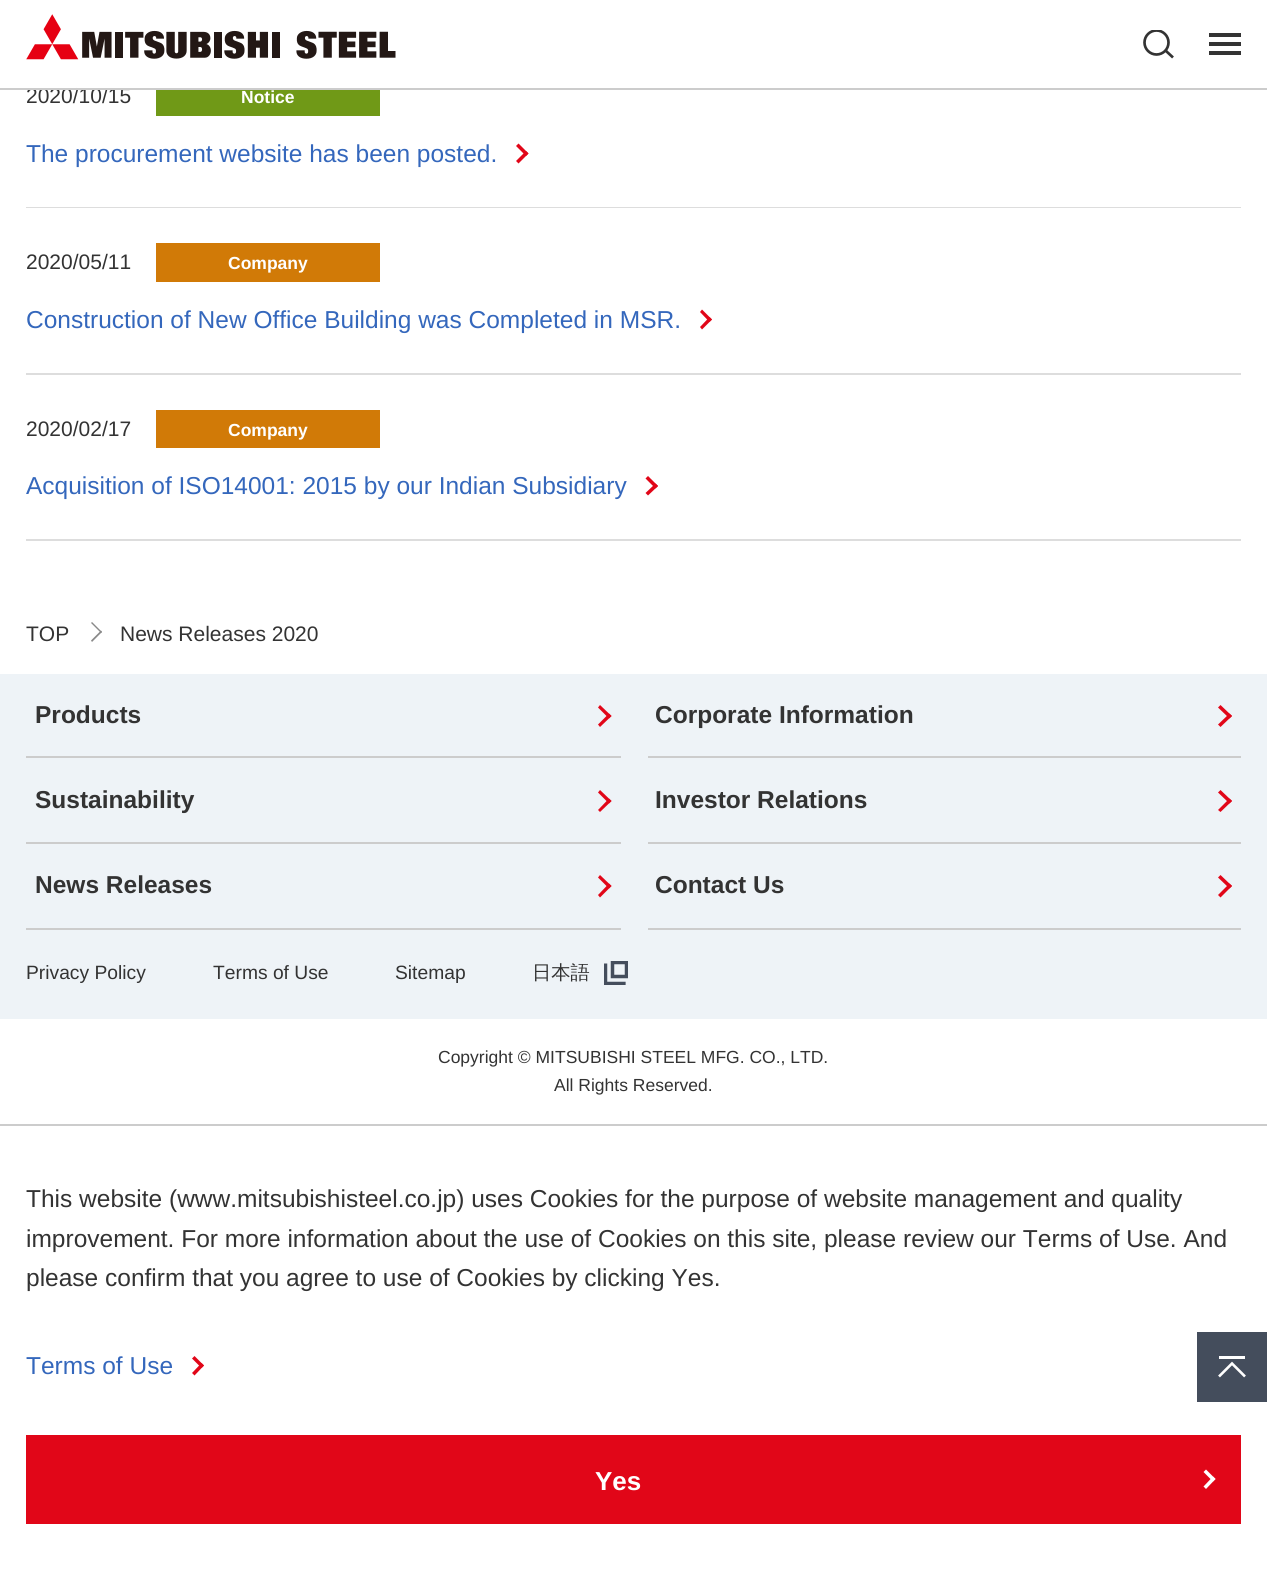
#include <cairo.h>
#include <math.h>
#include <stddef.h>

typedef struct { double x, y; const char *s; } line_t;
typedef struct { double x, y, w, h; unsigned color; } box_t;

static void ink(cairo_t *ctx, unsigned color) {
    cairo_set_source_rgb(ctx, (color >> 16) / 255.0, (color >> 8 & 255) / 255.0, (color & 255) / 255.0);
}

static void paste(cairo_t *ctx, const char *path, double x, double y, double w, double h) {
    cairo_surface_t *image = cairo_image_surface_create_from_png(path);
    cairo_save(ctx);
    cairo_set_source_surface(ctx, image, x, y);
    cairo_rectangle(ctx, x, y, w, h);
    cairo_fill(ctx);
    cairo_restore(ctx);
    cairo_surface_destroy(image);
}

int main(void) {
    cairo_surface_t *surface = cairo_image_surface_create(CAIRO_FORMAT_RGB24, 1267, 1572);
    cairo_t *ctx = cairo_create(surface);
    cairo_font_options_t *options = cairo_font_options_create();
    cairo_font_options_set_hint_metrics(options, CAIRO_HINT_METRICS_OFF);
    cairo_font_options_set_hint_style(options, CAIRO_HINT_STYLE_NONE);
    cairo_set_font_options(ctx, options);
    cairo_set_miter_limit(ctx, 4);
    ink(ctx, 0xFFFFFF);
    cairo_paint(ctx);
    cairo_select_font_face(ctx, "Liberation Sans", CAIRO_FONT_SLANT_NORMAL, CAIRO_FONT_WEIGHT_NORMAL);
    cairo_set_font_size(ctx, 21);
    ink(ctx, 0x333333);
    cairo_move_to(ctx, 26, 103);
    cairo_show_text(ctx, "2020/10/15");
    ink(ctx, 0xFFFFFF);
    cairo_rectangle(ctx, 77, 87, 31, 1);
    cairo_fill(ctx);
    ink(ctx, 0xCCCCCC);
    cairo_rectangle(ctx, 0, 88, 1267, 2);
    cairo_fill(ctx);
    paste(ctx, "media/1.png", 26, 14, 370, 46);
    cairo_save(ctx);
    cairo_rectangle(ctx, 1143, 30, 31, 28);
    cairo_clip(ctx);
    cairo_arc(ctx, 1156.5, 42.5, 12, 0, 2 * M_PI);
    ink(ctx, 0x333333);
    cairo_set_line_width(ctx, 2.7);
    cairo_stroke(ctx);
    cairo_restore(ctx);
    cairo_new_path(ctx);
    cairo_move_to(ctx, 1165.5, 50.5);
    cairo_line_to(ctx, 1173, 57.5);
    ink(ctx, 0x333333);
    cairo_set_line_width(ctx, 2.7);
    cairo_stroke(ctx);
    {
        static const box_t items[] = {
            {1209, 33, 32, 4, 0x333333},
            {1209, 42, 32, 4, 0x333333},
            {1209, 51, 32, 4, 0x333333},
            {26, 207, 1215, 1, 0xDDDDDD},
            {156, 90, 224, 26, 0x709917},
        };
        for (size_t i = 0; i < sizeof items / sizeof *items; i++) {
            ink(ctx, items[i].color);
            cairo_rectangle(ctx, items[i].x, items[i].y, items[i].w, items[i].h);
            cairo_fill(ctx);
        }
    }
    cairo_select_font_face(ctx, "Liberation Sans", CAIRO_FONT_SLANT_NORMAL, CAIRO_FONT_WEIGHT_BOLD);
    cairo_set_font_size(ctx, 17.5);
    ink(ctx, 0xFFFFFF);
    cairo_move_to(ctx, 241, 103);
    cairo_show_text(ctx, "Notice");
    cairo_select_font_face(ctx, "Liberation Sans", CAIRO_FONT_SLANT_NORMAL, CAIRO_FONT_WEIGHT_NORMAL);
    cairo_set_font_size(ctx, 24.5);
    ink(ctx, 0x3467BC);
    cairo_move_to(ctx, 26, 162);
    cairo_show_text(ctx, "The procurement website has been posted.");
    ink(ctx, 0xE10618);
    cairo_new_path(ctx);
    cairo_move_to(ctx, 518.5, 143.5);
    cairo_line_to(ctx, 528.5, 153.5);
    cairo_line_to(ctx, 526, 156);
    cairo_line_to(ctx, 516, 146);
    cairo_close_path(ctx);
    cairo_fill(ctx);
    cairo_new_path(ctx);
    cairo_move_to(ctx, 526, 151);
    cairo_line_to(ctx, 528.5, 153.5);
    cairo_line_to(ctx, 518.5, 163.5);
    cairo_line_to(ctx, 516, 161);
    cairo_close_path(ctx);
    cairo_fill(ctx);
    ink(ctx, 0xDDDDDD);
    cairo_rectangle(ctx, 26, 373, 1215, 2);
    cairo_fill(ctx);
    cairo_set_font_size(ctx, 21);
    ink(ctx, 0x333333);
    cairo_move_to(ctx, 26, 269);
    cairo_show_text(ctx, "2020/05/11");
    ink(ctx, 0xD17A07);
    cairo_rectangle(ctx, 156, 243, 224, 39);
    cairo_fill(ctx);
    cairo_select_font_face(ctx, "Liberation Sans", CAIRO_FONT_SLANT_NORMAL, CAIRO_FONT_WEIGHT_BOLD);
    cairo_set_font_size(ctx, 17.5);
    ink(ctx, 0xFFFFFF);
    cairo_move_to(ctx, 228, 269);
    cairo_show_text(ctx, "Company");
    cairo_select_font_face(ctx, "Liberation Sans", CAIRO_FONT_SLANT_NORMAL, CAIRO_FONT_WEIGHT_NORMAL);
    cairo_set_font_size(ctx, 24.5);
    ink(ctx, 0x3467BC);
    cairo_move_to(ctx, 26, 328);
    cairo_show_text(ctx, "Construction of New Office Building was Completed in MSR.");
    ink(ctx, 0xE10618);
    cairo_new_path(ctx);
    cairo_move_to(ctx, 702, 309.5);
    cairo_line_to(ctx, 712, 319.5);
    cairo_line_to(ctx, 709.5, 322);
    cairo_line_to(ctx, 700, 312);
    cairo_close_path(ctx);
    cairo_fill(ctx);
    cairo_new_path(ctx);
    cairo_move_to(ctx, 709.5, 317);
    cairo_line_to(ctx, 712, 319.5);
    cairo_line_to(ctx, 702, 329.5);
    cairo_line_to(ctx, 700, 327);
    cairo_close_path(ctx);
    cairo_fill(ctx);
    ink(ctx, 0xDDDDDD);
    cairo_rectangle(ctx, 26, 539, 1215, 2);
    cairo_fill(ctx);
    cairo_set_font_size(ctx, 21);
    ink(ctx, 0x333333);
    cairo_move_to(ctx, 26, 436);
    cairo_show_text(ctx, "2020/02/17");
    ink(ctx, 0xD17A07);
    cairo_rectangle(ctx, 156, 410, 224, 38);
    cairo_fill(ctx);
    cairo_select_font_face(ctx, "Liberation Sans", CAIRO_FONT_SLANT_NORMAL, CAIRO_FONT_WEIGHT_BOLD);
    cairo_set_font_size(ctx, 17.5);
    ink(ctx, 0xFFFFFF);
    cairo_move_to(ctx, 228, 436);
    cairo_show_text(ctx, "Company");
    cairo_select_font_face(ctx, "Liberation Sans", CAIRO_FONT_SLANT_NORMAL, CAIRO_FONT_WEIGHT_NORMAL);
    cairo_set_font_size(ctx, 24.5);
    ink(ctx, 0x3467BC);
    cairo_move_to(ctx, 26, 494);
    cairo_show_text(ctx, "Acquisition of ISO14001: 2015 by our Indian Subsidiary");
    ink(ctx, 0xE10618);
    cairo_new_path(ctx);
    cairo_move_to(ctx, 648, 476);
    cairo_line_to(ctx, 658, 486);
    cairo_line_to(ctx, 655.5, 488.5);
    cairo_line_to(ctx, 645.5, 478.5);
    cairo_close_path(ctx);
    cairo_fill(ctx);
    cairo_new_path(ctx);
    cairo_move_to(ctx, 655.5, 483.5);
    cairo_line_to(ctx, 658, 486);
    cairo_line_to(ctx, 648, 495.5);
    cairo_line_to(ctx, 645.5, 493);
    cairo_close_path(ctx);
    cairo_fill(ctx);
    cairo_set_font_size(ctx, 21);
    ink(ctx, 0x333333);
    cairo_move_to(ctx, 26, 641);
    cairo_show_text(ctx, "TOP");
    ink(ctx, 0x898989);
    cairo_new_path(ctx);
    cairo_move_to(ctx, 92, 622);
    cairo_line_to(ctx, 102, 632);
    cairo_line_to(ctx, 101, 633);
    cairo_line_to(ctx, 91, 623);
    cairo_close_path(ctx);
    cairo_fill(ctx);
    cairo_new_path(ctx);
    cairo_move_to(ctx, 101, 630.5);
    cairo_line_to(ctx, 102, 632);
    cairo_line_to(ctx, 92, 642);
    cairo_line_to(ctx, 91, 640.5);
    cairo_close_path(ctx);
    cairo_fill(ctx);
    ink(ctx, 0x333333);
    cairo_move_to(ctx, 120, 641);
    cairo_show_text(ctx, "News Releases 2020");
    ink(ctx, 0xEEF3F7);
    cairo_rectangle(ctx, 0, 674, 1267, 345);
    cairo_fill(ctx);
    ink(ctx, 0xCCCCCC);
    cairo_rectangle(ctx, 26, 756, 595, 2);
    cairo_fill(ctx);
    cairo_select_font_face(ctx, "Liberation Sans", CAIRO_FONT_SLANT_NORMAL, CAIRO_FONT_WEIGHT_BOLD);
    cairo_set_font_size(ctx, 24.5);
    ink(ctx, 0x333333);
    cairo_move_to(ctx, 35, 723);
    cairo_show_text(ctx, "Products");
    ink(ctx, 0xE10618);
    cairo_new_path(ctx);
    cairo_move_to(ctx, 600, 705);
    cairo_line_to(ctx, 611.5, 716);
    cairo_line_to(ctx, 609, 718.5);
    cairo_line_to(ctx, 598, 707.5);
    cairo_close_path(ctx);
    cairo_fill(ctx);
    cairo_new_path(ctx);
    cairo_move_to(ctx, 609, 713.5);
    cairo_line_to(ctx, 611.5, 716);
    cairo_line_to(ctx, 600, 727);
    cairo_line_to(ctx, 598, 724.5);
    cairo_close_path(ctx);
    cairo_fill(ctx);
    ink(ctx, 0xCCCCCC);
    cairo_rectangle(ctx, 648, 756, 593, 2);
    cairo_fill(ctx);
    ink(ctx, 0x333333);
    cairo_move_to(ctx, 655, 723);
    cairo_show_text(ctx, "Corporate Information");
    ink(ctx, 0xE10618);
    cairo_new_path(ctx);
    cairo_move_to(ctx, 1220.5, 705);
    cairo_line_to(ctx, 1232, 716);
    cairo_line_to(ctx, 1229.5, 718.5);
    cairo_line_to(ctx, 1218, 707.5);
    cairo_close_path(ctx);
    cairo_fill(ctx);
    cairo_new_path(ctx);
    cairo_move_to(ctx, 1229.5, 713.5);
    cairo_line_to(ctx, 1232, 716);
    cairo_line_to(ctx, 1220.5, 727);
    cairo_line_to(ctx, 1218, 724.5);
    cairo_close_path(ctx);
    cairo_fill(ctx);
    ink(ctx, 0xCCCCCC);
    cairo_rectangle(ctx, 26, 842, 595, 2);
    cairo_fill(ctx);
    ink(ctx, 0x333333);
    cairo_move_to(ctx, 35, 808);
    cairo_show_text(ctx, "Sustainability");
    ink(ctx, 0xE10618);
    cairo_new_path(ctx);
    cairo_move_to(ctx, 600, 790);
    cairo_line_to(ctx, 611.5, 801);
    cairo_line_to(ctx, 609, 803.5);
    cairo_line_to(ctx, 598, 792.5);
    cairo_close_path(ctx);
    cairo_fill(ctx);
    cairo_new_path(ctx);
    cairo_move_to(ctx, 609, 798.5);
    cairo_line_to(ctx, 611.5, 801);
    cairo_line_to(ctx, 600, 812);
    cairo_line_to(ctx, 598, 810);
    cairo_close_path(ctx);
    cairo_fill(ctx);
    ink(ctx, 0xCCCCCC);
    cairo_rectangle(ctx, 648, 842, 593, 2);
    cairo_fill(ctx);
    ink(ctx, 0x333333);
    cairo_move_to(ctx, 655, 808);
    cairo_show_text(ctx, "Investor Relations");
    ink(ctx, 0xE10618);
    cairo_new_path(ctx);
    cairo_move_to(ctx, 1220.5, 790);
    cairo_line_to(ctx, 1232, 801);
    cairo_line_to(ctx, 1229.5, 803.5);
    cairo_line_to(ctx, 1218, 792.5);
    cairo_close_path(ctx);
    cairo_fill(ctx);
    cairo_new_path(ctx);
    cairo_move_to(ctx, 1229.5, 798.5);
    cairo_line_to(ctx, 1232, 801);
    cairo_line_to(ctx, 1220.5, 812);
    cairo_line_to(ctx, 1218, 810);
    cairo_close_path(ctx);
    cairo_fill(ctx);
    ink(ctx, 0xCCCCCC);
    cairo_rectangle(ctx, 26, 928, 595, 2);
    cairo_fill(ctx);
    ink(ctx, 0x333333);
    cairo_move_to(ctx, 35, 893);
    cairo_show_text(ctx, "News Releases");
    ink(ctx, 0xE10618);
    cairo_new_path(ctx);
    cairo_move_to(ctx, 600, 875);
    cairo_line_to(ctx, 611.5, 886);
    cairo_line_to(ctx, 609, 888.5);
    cairo_line_to(ctx, 598, 877.5);
    cairo_close_path(ctx);
    cairo_fill(ctx);
    cairo_new_path(ctx);
    cairo_move_to(ctx, 609, 883.5);
    cairo_line_to(ctx, 611.5, 886);
    cairo_line_to(ctx, 600, 897.5);
    cairo_line_to(ctx, 598, 895);
    cairo_close_path(ctx);
    cairo_fill(ctx);
    ink(ctx, 0xCCCCCC);
    cairo_rectangle(ctx, 648, 928, 593, 2);
    cairo_fill(ctx);
    ink(ctx, 0x333333);
    cairo_move_to(ctx, 655, 893);
    cairo_show_text(ctx, "Contact Us");
    ink(ctx, 0xE10618);
    cairo_new_path(ctx);
    cairo_move_to(ctx, 1220.5, 875);
    cairo_line_to(ctx, 1232, 886);
    cairo_line_to(ctx, 1229.5, 888.5);
    cairo_line_to(ctx, 1218, 877.5);
    cairo_close_path(ctx);
    cairo_fill(ctx);
    cairo_new_path(ctx);
    cairo_move_to(ctx, 1229.5, 883.5);
    cairo_line_to(ctx, 1232, 886);
    cairo_line_to(ctx, 1220.5, 897.5);
    cairo_line_to(ctx, 1218, 895);
    cairo_close_path(ctx);
    cairo_fill(ctx);
    cairo_select_font_face(ctx, "Liberation Sans", CAIRO_FONT_SLANT_NORMAL, CAIRO_FONT_WEIGHT_NORMAL);
    cairo_set_font_size(ctx, 19.25);
    ink(ctx, 0x333333);
    {
        static const line_t items[] = {
            {26, 979, "Privacy Policy"},
            {213, 979, "Terms of Use"},
            {395, 979, "Sitemap"},
        };
        for (size_t i = 0; i < sizeof items / sizeof *items; i++) {
            cairo_move_to(ctx, items[i].x, items[i].y);
            cairo_show_text(ctx, items[i].s);
        }
    }
    cairo_select_font_face(ctx, "WenQuanYi Zen Hei Medium", CAIRO_FONT_SLANT_NORMAL, CAIRO_FONT_WEIGHT_NORMAL);
    cairo_move_to(ctx, 532, 979);
    cairo_show_text(ctx, "日本語");
    paste(ctx, "media/2.png", 604, 961, 24, 24);
    cairo_select_font_face(ctx, "Liberation Sans", CAIRO_FONT_SLANT_NORMAL, CAIRO_FONT_WEIGHT_NORMAL);
    cairo_set_font_size(ctx, 17.5);
    cairo_move_to(ctx, 438, 1063);
    cairo_show_text(ctx, "Copyright © MITSUBISHI STEEL MFG. CO., LTD.");
    cairo_move_to(ctx, 554, 1091);
    cairo_show_text(ctx, "All Rights Reserved.");
    ink(ctx, 0x444D5C);
    cairo_rectangle(ctx, 1197, 1332, 70, 70);
    cairo_fill(ctx);
    ink(ctx, 0xFFFFFF);
    cairo_rectangle(ctx, 1219, 1356, 26, 3);
    cairo_fill(ctx);
    cairo_new_path(ctx);
    cairo_move_to(ctx, 1219, 1376.5);
    cairo_line_to(ctx, 1232, 1363.5);
    cairo_line_to(ctx, 1245, 1376.5);
    cairo_set_line_width(ctx, 2.6);
    cairo_stroke(ctx);
    ink(ctx, 0xCCCCCC);
    cairo_rectangle(ctx, 0, 1124, 1267, 2);
    cairo_fill(ctx);
    cairo_set_font_size(ctx, 24.5);
    ink(ctx, 0x333333);
    {
        static const line_t items[] = {
            {26, 1207, "This website (www.mitsubishisteel.co.jp) uses Cookies for the purpose of website management and quality"},
            {26, 1247, "improvement. For more information about the use of Cookies on this site, please review our Terms of Use. And"},
            {26, 1286, "please confirm that you agree to use of Cookies by clicking Yes."},
        };
        for (size_t i = 0; i < sizeof items / sizeof *items; i++) {
            cairo_move_to(ctx, items[i].x, items[i].y);
            cairo_show_text(ctx, items[i].s);
        }
    }
    ink(ctx, 0x3467BC);
    cairo_move_to(ctx, 26, 1374);
    cairo_show_text(ctx, "Terms of Use");
    ink(ctx, 0xE10618);
    cairo_new_path(ctx);
    cairo_move_to(ctx, 194.5, 1356);
    cairo_line_to(ctx, 204, 1365.5);
    cairo_line_to(ctx, 201.5, 1368);
    cairo_line_to(ctx, 192, 1358.5);
    cairo_close_path(ctx);
    cairo_fill(ctx);
    cairo_new_path(ctx);
    cairo_move_to(ctx, 201.5, 1363);
    cairo_line_to(ctx, 204, 1365.5);
    cairo_line_to(ctx, 194.5, 1375.5);
    cairo_line_to(ctx, 192, 1373);
    cairo_close_path(ctx);
    cairo_fill(ctx);
    cairo_rectangle(ctx, 26, 1435, 1215, 89);
    cairo_fill(ctx);
    cairo_select_font_face(ctx, "Liberation Sans", CAIRO_FONT_SLANT_NORMAL, CAIRO_FONT_WEIGHT_BOLD);
    cairo_set_font_size(ctx, 26);
    ink(ctx, 0xFFFFFF);
    cairo_move_to(ctx, 595, 1490);
    cairo_show_text(ctx, "Yes");
    cairo_new_path(ctx);
    cairo_move_to(ctx, 1206, 1469.5);
    cairo_line_to(ctx, 1215.5, 1479);
    cairo_line_to(ctx, 1213, 1481.5);
    cairo_line_to(ctx, 1203.5, 1472);
    cairo_close_path(ctx);
    cairo_fill(ctx);
    cairo_new_path(ctx);
    cairo_move_to(ctx, 1213, 1476.5);
    cairo_line_to(ctx, 1215.5, 1479);
    cairo_line_to(ctx, 1206, 1489);
    cairo_line_to(ctx, 1203.5, 1486.5);
    cairo_close_path(ctx);
    cairo_fill(ctx);
    cairo_surface_write_to_png(surface, "image.png");
    cairo_font_options_destroy(options);
    cairo_destroy(ctx);
    cairo_surface_destroy(surface);
    return 0;
}
